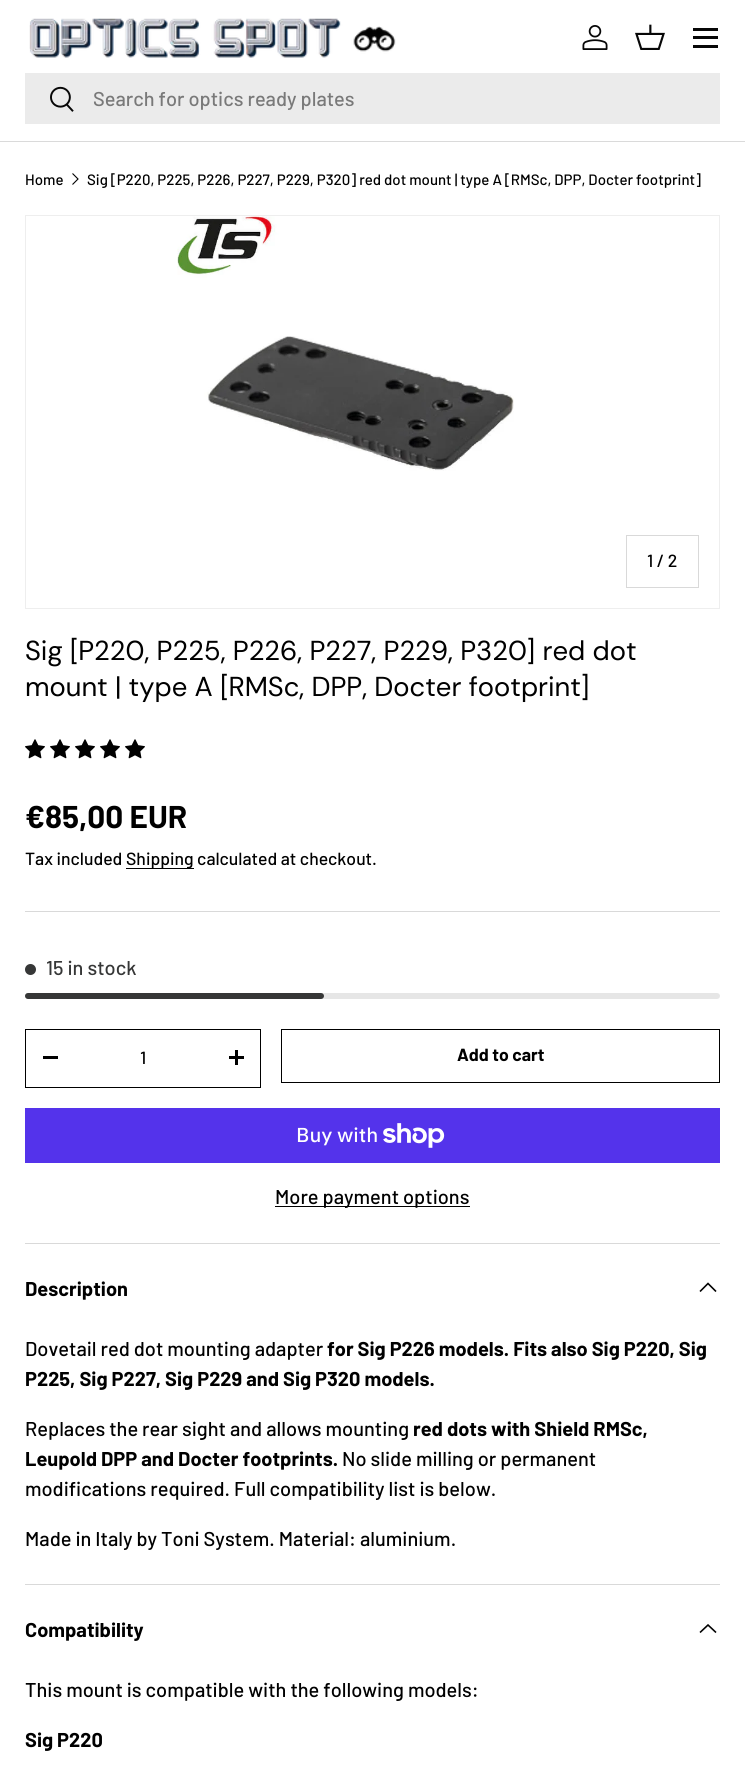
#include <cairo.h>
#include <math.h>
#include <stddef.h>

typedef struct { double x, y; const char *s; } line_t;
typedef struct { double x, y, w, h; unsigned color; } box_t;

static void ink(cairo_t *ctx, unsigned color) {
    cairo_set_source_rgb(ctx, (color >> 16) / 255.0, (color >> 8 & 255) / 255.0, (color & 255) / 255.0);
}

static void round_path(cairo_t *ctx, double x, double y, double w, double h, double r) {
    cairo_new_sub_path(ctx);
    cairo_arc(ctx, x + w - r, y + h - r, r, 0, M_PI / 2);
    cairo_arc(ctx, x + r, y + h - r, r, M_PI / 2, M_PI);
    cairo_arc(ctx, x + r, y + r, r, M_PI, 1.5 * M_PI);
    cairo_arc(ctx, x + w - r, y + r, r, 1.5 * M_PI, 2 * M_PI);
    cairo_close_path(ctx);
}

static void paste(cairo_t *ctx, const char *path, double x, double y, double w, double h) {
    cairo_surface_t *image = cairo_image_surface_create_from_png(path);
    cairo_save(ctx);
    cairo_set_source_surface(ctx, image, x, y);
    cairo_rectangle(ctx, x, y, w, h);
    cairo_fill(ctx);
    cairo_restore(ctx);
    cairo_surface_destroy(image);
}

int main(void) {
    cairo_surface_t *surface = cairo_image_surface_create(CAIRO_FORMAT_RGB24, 745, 1784);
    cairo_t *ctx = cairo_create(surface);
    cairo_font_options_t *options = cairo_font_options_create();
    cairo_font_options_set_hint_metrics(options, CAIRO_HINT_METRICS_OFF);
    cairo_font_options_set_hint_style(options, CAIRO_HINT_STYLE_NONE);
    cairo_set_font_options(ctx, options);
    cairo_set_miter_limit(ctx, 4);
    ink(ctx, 0xFFFFFF);
    cairo_paint(ctx);
    ink(ctx, 0xDADADA);
    cairo_rectangle(ctx, 0, 141, 745, 1);
    cairo_fill(ctx);
    paste(ctx, "media/1.png", 29, 18, 367, 40);
    paste(ctx, "media/2.png", 582, 25, 26, 25);
    paste(ctx, "media/3.png", 635, 24, 30, 26);
    {
        static const box_t items[] = {
            {693, 28, 25, 3, 0x070707},
            {693, 45, 25, 3, 0x070707},
            {693, 36, 25, 3, 0x070707},
            {25, 73, 695, 51, 0xEBEBEB},
        };
        for (size_t i = 0; i < sizeof items / sizeof *items; i++) {
            ink(ctx, items[i].color);
            cairo_rectangle(ctx, items[i].x, items[i].y, items[i].w, items[i].h);
            cairo_fill(ctx);
        }
    }
    paste(ctx, "media/4.png", 50, 86, 24, 26);
    cairo_select_font_face(ctx, "Barlow Medium", CAIRO_FONT_SLANT_NORMAL, CAIRO_FONT_WEIGHT_NORMAL);
    cairo_set_font_size(ctx, 20);
    ink(ctx, 0x797979);
    cairo_move_to(ctx, 93, 106);
    cairo_show_text(ctx, "Search for optics ready plates");
    cairo_set_font_size(ctx, 15);
    ink(ctx, 0x000000);
    cairo_move_to(ctx, 25, 185);
    cairo_show_text(ctx, "Home");
    cairo_new_path(ctx);
    cairo_move_to(ctx, 72.5, 173.5);
    cairo_line_to(ctx, 78, 179);
    cairo_line_to(ctx, 72.5, 184.5);
    cairo_set_line_width(ctx, 1.1);
    cairo_stroke(ctx);
    cairo_move_to(ctx, 87, 185);
    cairo_show_text(ctx, "Sig [P220, P225, P226, P227, P229, P320] red dot mount | type A [RMSc, DPP, Docter footprint]");
    cairo_rectangle(ctx, 25.5, 215.5, 694, 393);
    ink(ctx, 0xEEEEEE);
    cairo_set_line_width(ctx, 1);
    cairo_stroke(ctx);
    paste(ctx, "media/5.png", 177, 216, 337, 255);
    cairo_rectangle(ctx, 626.5, 535.5, 72, 52);
    ink(ctx, 0xD9D9D9);
    cairo_stroke(ctx);
    cairo_set_font_size(ctx, 17.6);
    ink(ctx, 0x000000);
    cairo_move_to(ctx, 647, 567);
    cairo_show_text(ctx, "1 / 2");
    cairo_select_font_face(ctx, "DM Sans", CAIRO_FONT_SLANT_NORMAL, CAIRO_FONT_WEIGHT_NORMAL);
    cairo_set_font_size(ctx, 27.4);
    cairo_move_to(ctx, 25, 660);
    cairo_show_text(ctx, "Sig [P220, P225, P226, P227, P229, P320] red dot");
    cairo_move_to(ctx, 25, 696);
    cairo_show_text(ctx, "mount | type A [RMSc, DPP, Docter footprint]");
    paste(ctx, "media/6.png", 25, 739, 20, 20);
    paste(ctx, "media/6.png", 50, 739, 20, 20);
    paste(ctx, "media/6.png", 75, 739, 20, 20);
    paste(ctx, "media/6.png", 100, 739, 20, 20);
    paste(ctx, "media/6.png", 125, 739, 20, 20);
    cairo_select_font_face(ctx, "Barlow", CAIRO_FONT_SLANT_NORMAL, CAIRO_FONT_WEIGHT_BOLD);
    cairo_set_font_size(ctx, 31.5);
    cairo_move_to(ctx, 25, 828);
    cairo_show_text(ctx, "€85,00 EUR");
    cairo_select_font_face(ctx, "Barlow Medium", CAIRO_FONT_SLANT_NORMAL, CAIRO_FONT_WEIGHT_NORMAL);
    cairo_set_font_size(ctx, 17.6);
    cairo_move_to(ctx, 25, 865);
    cairo_show_text(ctx, "Tax included");
    cairo_rectangle(ctx, 126, 868, 68, 1);
    cairo_fill(ctx);
    cairo_move_to(ctx, 126, 865);
    cairo_show_text(ctx, "Shipping calculated at checkout.");
    ink(ctx, 0xD9D9D9);
    cairo_rectangle(ctx, 25, 911, 695, 1);
    cairo_fill(ctx);
    ink(ctx, 0x363737);
    cairo_arc(ctx, 30.5, 969.5, 5.5, 0, 2 * M_PI);
    cairo_fill(ctx);
    cairo_set_font_size(ctx, 20);
    cairo_move_to(ctx, 46, 975);
    cairo_show_text(ctx, "15 in stock");
    ink(ctx, 0xE6E6E6);
    round_path(ctx, 25, 993, 695, 6, 3);
    cairo_fill(ctx);
    ink(ctx, 0x363737);
    round_path(ctx, 25, 993, 299, 6, 3);
    cairo_fill(ctx);
    cairo_rectangle(ctx, 25.5, 1029.5, 235, 58);
    ink(ctx, 0x000000);
    cairo_stroke(ctx);
    cairo_rectangle(ctx, 43, 1056, 15, 3);
    cairo_fill(ctx);
    cairo_set_font_size(ctx, 17.6);
    cairo_move_to(ctx, 140, 1064);
    cairo_show_text(ctx, "1");
    cairo_rectangle(ctx, 229, 1056, 15, 3);
    cairo_fill(ctx);
    cairo_rectangle(ctx, 235, 1050, 3, 15);
    cairo_fill(ctx);
    cairo_rectangle(ctx, 281.5, 1029.5, 438, 53);
    cairo_stroke(ctx);
    cairo_select_font_face(ctx, "Barlow", CAIRO_FONT_SLANT_NORMAL, CAIRO_FONT_WEIGHT_BOLD);
    cairo_move_to(ctx, 457, 1061);
    cairo_show_text(ctx, "Add to cart");
    ink(ctx, 0x5433EB);
    cairo_rectangle(ctx, 25, 1108, 695, 55);
    cairo_fill(ctx);
    cairo_select_font_face(ctx, "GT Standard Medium", CAIRO_FONT_SLANT_NORMAL, CAIRO_FONT_WEIGHT_NORMAL);
    cairo_set_font_size(ctx, 20);
    ink(ctx, 0xFFFFFF);
    cairo_move_to(ctx, 296, 1142);
    cairo_show_text(ctx, "Buy with");
    paste(ctx, "media/7.png", 383, 1123, 62, 25);
    ink(ctx, 0x000000);
    cairo_rectangle(ctx, 275, 1206, 195, 1);
    cairo_fill(ctx);
    cairo_select_font_face(ctx, "Barlow Medium", CAIRO_FONT_SLANT_NORMAL, CAIRO_FONT_WEIGHT_NORMAL);
    cairo_move_to(ctx, 275, 1204);
    cairo_show_text(ctx, "More payment options");
    ink(ctx, 0xD9D9D9);
    cairo_rectangle(ctx, 25, 1243, 695, 1);
    cairo_fill(ctx);
    cairo_rectangle(ctx, 25, 1584, 695, 1);
    cairo_fill(ctx);
    cairo_select_font_face(ctx, "Barlow", CAIRO_FONT_SLANT_NORMAL, CAIRO_FONT_WEIGHT_BOLD);
    ink(ctx, 0x000000);
    cairo_move_to(ctx, 25, 1296);
    cairo_show_text(ctx, "Description");
    cairo_new_path(ctx);
    cairo_move_to(ctx, 716, 1291.5);
    cairo_line_to(ctx, 708, 1283.5);
    cairo_line_to(ctx, 700, 1291.5);
    cairo_set_line_width(ctx, 1.6);
    cairo_stroke(ctx);
    cairo_select_font_face(ctx, "Barlow Medium", CAIRO_FONT_SLANT_NORMAL, CAIRO_FONT_WEIGHT_NORMAL);
    cairo_move_to(ctx, 25, 1356);
    cairo_show_text(ctx, "Dovetail red dot mounting adapter");
    cairo_select_font_face(ctx, "Barlow", CAIRO_FONT_SLANT_NORMAL, CAIRO_FONT_WEIGHT_BOLD);
    cairo_move_to(ctx, 327, 1356);
    cairo_show_text(ctx, "for Sig P226 models. Fits also Sig P220, Sig");
    cairo_move_to(ctx, 25, 1386);
    cairo_show_text(ctx, "P225, Sig P227, Sig P229 and Sig P320 models.");
    cairo_select_font_face(ctx, "Barlow Medium", CAIRO_FONT_SLANT_NORMAL, CAIRO_FONT_WEIGHT_NORMAL);
    cairo_move_to(ctx, 25, 1436);
    cairo_show_text(ctx, "Replaces the rear sight and allows mounting");
    cairo_select_font_face(ctx, "Barlow", CAIRO_FONT_SLANT_NORMAL, CAIRO_FONT_WEIGHT_BOLD);
    cairo_move_to(ctx, 413, 1436);
    cairo_show_text(ctx, "red dots with Shield RMSc,");
    cairo_move_to(ctx, 25, 1466);
    cairo_show_text(ctx, "Leupold DPP and Docter footprints.");
    cairo_select_font_face(ctx, "Barlow Medium", CAIRO_FONT_SLANT_NORMAL, CAIRO_FONT_WEIGHT_NORMAL);
    {
        static const line_t items[] = {
            {342, 1466, "No slide milling or permanent"},
            {25, 1496, "modifications required. Full compatibility list is below."},
            {25, 1546, "Made in Italy by Toni System. Material: aluminium."},
        };
        for (size_t i = 0; i < sizeof items / sizeof *items; i++) {
            cairo_move_to(ctx, items[i].x, items[i].y);
            cairo_show_text(ctx, items[i].s);
        }
    }
    cairo_select_font_face(ctx, "Barlow", CAIRO_FONT_SLANT_NORMAL, CAIRO_FONT_WEIGHT_BOLD);
    cairo_move_to(ctx, 25, 1637);
    cairo_show_text(ctx, "Compatibility");
    cairo_new_path(ctx);
    cairo_move_to(ctx, 716, 1632.5);
    cairo_line_to(ctx, 708, 1625);
    cairo_line_to(ctx, 700, 1632.5);
    cairo_stroke(ctx);
    cairo_select_font_face(ctx, "Barlow Medium", CAIRO_FONT_SLANT_NORMAL, CAIRO_FONT_WEIGHT_NORMAL);
    cairo_move_to(ctx, 25, 1697);
    cairo_show_text(ctx, "This mount is compatible with the following models:");
    cairo_select_font_face(ctx, "Barlow", CAIRO_FONT_SLANT_NORMAL, CAIRO_FONT_WEIGHT_BOLD);
    cairo_move_to(ctx, 25, 1747);
    cairo_show_text(ctx, "Sig P220");
    cairo_surface_write_to_png(surface, "image.png");
    cairo_font_options_destroy(options);
    cairo_destroy(ctx);
    cairo_surface_destroy(surface);
    return 0;
}
